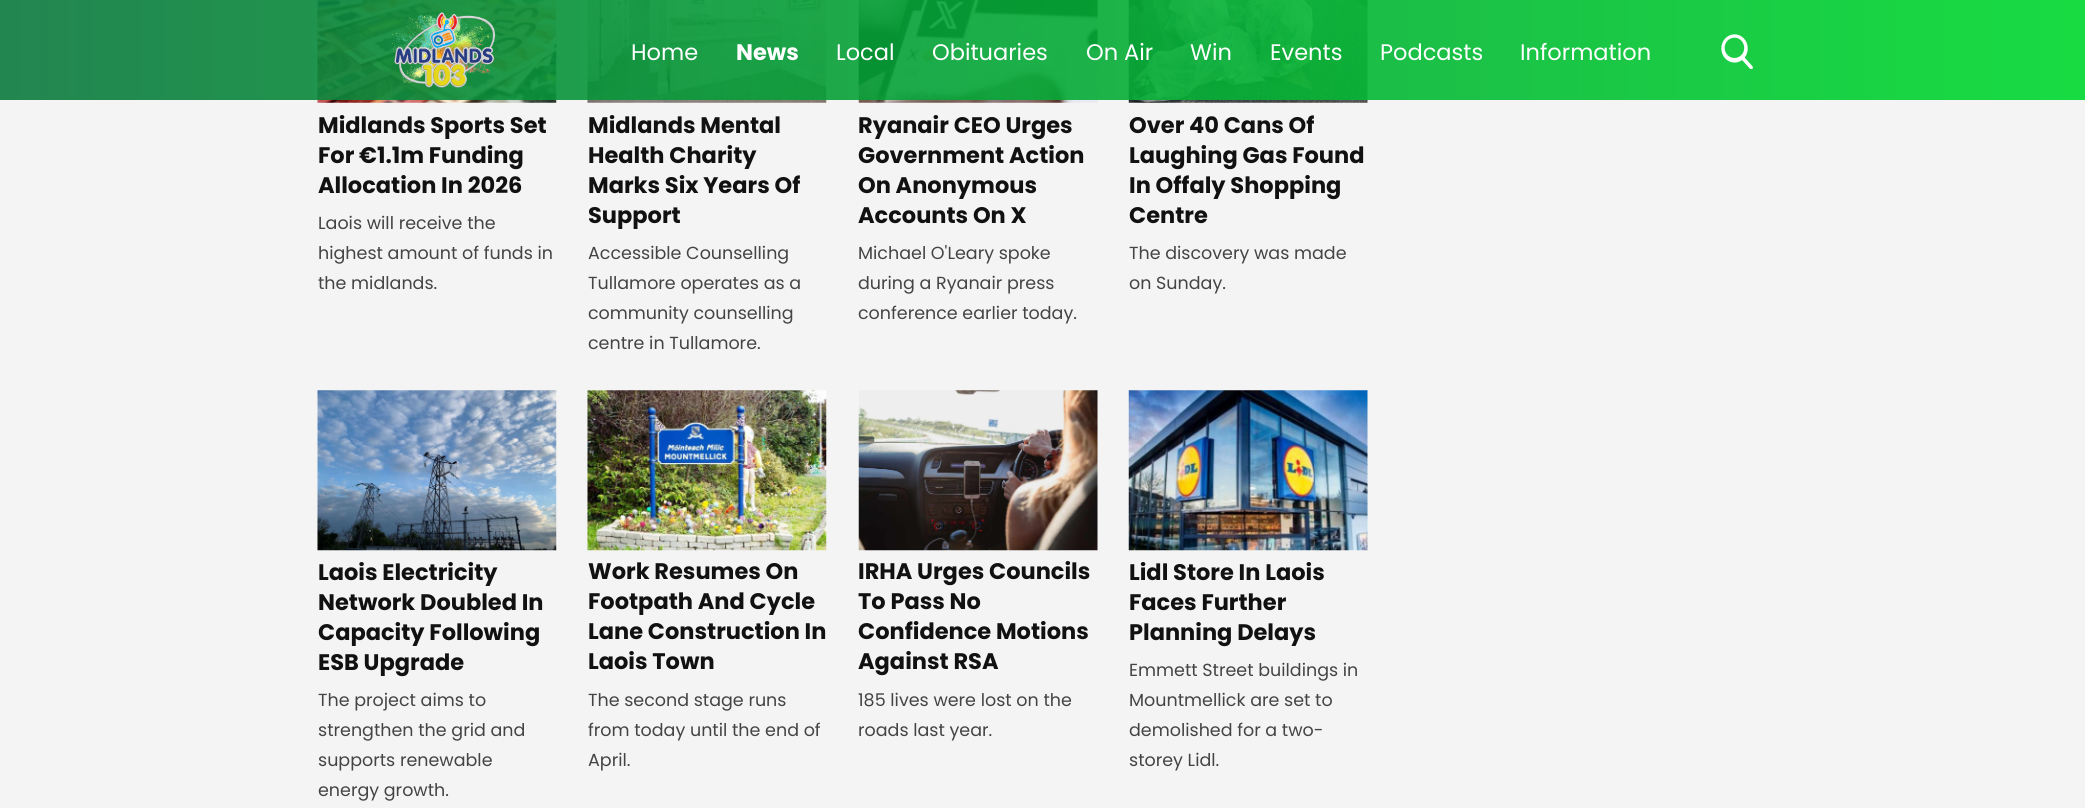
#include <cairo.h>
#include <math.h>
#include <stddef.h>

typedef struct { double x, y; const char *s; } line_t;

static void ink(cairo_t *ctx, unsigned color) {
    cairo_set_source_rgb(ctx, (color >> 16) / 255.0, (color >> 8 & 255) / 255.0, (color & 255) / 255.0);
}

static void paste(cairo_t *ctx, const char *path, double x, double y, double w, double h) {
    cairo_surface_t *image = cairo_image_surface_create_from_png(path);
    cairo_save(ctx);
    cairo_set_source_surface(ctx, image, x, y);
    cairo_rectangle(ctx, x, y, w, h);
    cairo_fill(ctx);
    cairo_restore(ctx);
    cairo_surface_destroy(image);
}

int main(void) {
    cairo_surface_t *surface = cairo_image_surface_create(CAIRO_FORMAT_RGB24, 2085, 808);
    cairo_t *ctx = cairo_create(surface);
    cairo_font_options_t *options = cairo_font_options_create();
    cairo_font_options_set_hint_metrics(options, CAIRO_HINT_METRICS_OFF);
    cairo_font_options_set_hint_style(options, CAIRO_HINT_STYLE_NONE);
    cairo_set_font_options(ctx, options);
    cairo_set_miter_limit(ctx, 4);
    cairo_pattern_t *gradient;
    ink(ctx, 0xF4F4F4);
    cairo_paint(ctx);
    paste(ctx, "media/3.png", 317, 0, 240, 103);
    paste(ctx, "media/4.png", 587, 0, 240, 103);
    paste(ctx, "media/5.png", 858, 0, 240, 103);
    paste(ctx, "media/6.png", 1128, 0, 240, 103);
    gradient = cairo_pattern_create_linear(0, 50, 2085, 50);
    cairo_pattern_add_color_stop_rgba(gradient, 0, 0.043, 0.478, 0.243, 0.9);
    cairo_pattern_add_color_stop_rgba(gradient, 1, 0, 0.851, 0.184, 0.9);
    cairo_set_source(ctx, gradient);
    cairo_pattern_destroy(gradient);
    cairo_rectangle(ctx, 0, 0, 2085, 100);
    cairo_fill(ctx);
    paste(ctx, "media/1.png", 391, 12, 105, 76);
    cairo_select_font_face(ctx, "Poppins", CAIRO_FONT_SLANT_NORMAL, CAIRO_FONT_WEIGHT_NORMAL);
    cairo_set_font_size(ctx, 22.5);
    ink(ctx, 0xFFFFFF);
    cairo_move_to(ctx, 631, 60);
    cairo_show_text(ctx, "Home");
    cairo_select_font_face(ctx, "Poppins", CAIRO_FONT_SLANT_NORMAL, CAIRO_FONT_WEIGHT_BOLD);
    cairo_move_to(ctx, 736, 60);
    cairo_show_text(ctx, "News");
    cairo_select_font_face(ctx, "Poppins", CAIRO_FONT_SLANT_NORMAL, CAIRO_FONT_WEIGHT_NORMAL);
    {
        static const line_t items[] = {
            {836, 60, "Local"},
            {932, 60, "Obituaries"},
            {1086, 60, "On Air"},
            {1190, 60, "Win"},
            {1270, 60, "Events"},
            {1380, 60, "Podcasts"},
            {1520, 60, "Information"},
        };
        for (size_t i = 0; i < sizeof items / sizeof *items; i++) {
            cairo_move_to(ctx, items[i].x, items[i].y);
            cairo_show_text(ctx, items[i].s);
        }
    }
    paste(ctx, "media/2.png", 1721, 34, 32, 35);
    cairo_select_font_face(ctx, "Poppins", CAIRO_FONT_SLANT_NORMAL, CAIRO_FONT_WEIGHT_BOLD);
    ink(ctx, 0x111111);
    {
        static const line_t items[] = {
            {318, 133, "Midlands Sports Set"},
            {318, 163, "For €1.1m Funding"},
            {318, 193, "Allocation In 2026"},
        };
        for (size_t i = 0; i < sizeof items / sizeof *items; i++) {
            cairo_move_to(ctx, items[i].x, items[i].y);
            cairo_show_text(ctx, items[i].s);
        }
    }
    cairo_select_font_face(ctx, "Poppins", CAIRO_FONT_SLANT_NORMAL, CAIRO_FONT_WEIGHT_NORMAL);
    cairo_set_font_size(ctx, 17.5);
    ink(ctx, 0x444444);
    {
        static const line_t items[] = {
            {318, 229, "Laois will receive the"},
            {318, 259, "highest amount of funds in"},
            {318, 289, "the midlands."},
        };
        for (size_t i = 0; i < sizeof items / sizeof *items; i++) {
            cairo_move_to(ctx, items[i].x, items[i].y);
            cairo_show_text(ctx, items[i].s);
        }
    }
    cairo_select_font_face(ctx, "Poppins", CAIRO_FONT_SLANT_NORMAL, CAIRO_FONT_WEIGHT_BOLD);
    cairo_set_font_size(ctx, 22.5);
    ink(ctx, 0x111111);
    {
        static const line_t items[] = {
            {588, 133, "Midlands Mental"},
            {588, 163, "Health Charity"},
            {588, 193, "Marks Six Years Of"},
            {588, 223, "Support"},
        };
        for (size_t i = 0; i < sizeof items / sizeof *items; i++) {
            cairo_move_to(ctx, items[i].x, items[i].y);
            cairo_show_text(ctx, items[i].s);
        }
    }
    cairo_select_font_face(ctx, "Poppins", CAIRO_FONT_SLANT_NORMAL, CAIRO_FONT_WEIGHT_NORMAL);
    cairo_set_font_size(ctx, 17.5);
    ink(ctx, 0x444444);
    {
        static const line_t items[] = {
            {588, 259, "Accessible Counselling"},
            {588, 289, "Tullamore operates as a"},
            {588, 319, "community counselling"},
            {588, 349, "centre in Tullamore."},
        };
        for (size_t i = 0; i < sizeof items / sizeof *items; i++) {
            cairo_move_to(ctx, items[i].x, items[i].y);
            cairo_show_text(ctx, items[i].s);
        }
    }
    cairo_select_font_face(ctx, "Poppins", CAIRO_FONT_SLANT_NORMAL, CAIRO_FONT_WEIGHT_BOLD);
    cairo_set_font_size(ctx, 22.5);
    ink(ctx, 0x111111);
    {
        static const line_t items[] = {
            {858, 133, "Ryanair CEO Urges"},
            {858, 163, "Government Action"},
            {858, 193, "On Anonymous"},
            {858, 223, "Accounts On X"},
        };
        for (size_t i = 0; i < sizeof items / sizeof *items; i++) {
            cairo_move_to(ctx, items[i].x, items[i].y);
            cairo_show_text(ctx, items[i].s);
        }
    }
    cairo_select_font_face(ctx, "Poppins", CAIRO_FONT_SLANT_NORMAL, CAIRO_FONT_WEIGHT_NORMAL);
    cairo_set_font_size(ctx, 17.5);
    ink(ctx, 0x444444);
    {
        static const line_t items[] = {
            {858, 259, "Michael O'Leary spoke"},
            {858, 289, "during a Ryanair press"},
            {858, 319, "conference earlier today."},
        };
        for (size_t i = 0; i < sizeof items / sizeof *items; i++) {
            cairo_move_to(ctx, items[i].x, items[i].y);
            cairo_show_text(ctx, items[i].s);
        }
    }
    cairo_select_font_face(ctx, "Poppins", CAIRO_FONT_SLANT_NORMAL, CAIRO_FONT_WEIGHT_BOLD);
    cairo_set_font_size(ctx, 22.5);
    ink(ctx, 0x111111);
    {
        static const line_t items[] = {
            {1129, 133, "Over 40 Cans Of"},
            {1129, 163, "Laughing Gas Found"},
            {1129, 193, "In Offaly Shopping"},
            {1129, 223, "Centre"},
        };
        for (size_t i = 0; i < sizeof items / sizeof *items; i++) {
            cairo_move_to(ctx, items[i].x, items[i].y);
            cairo_show_text(ctx, items[i].s);
        }
    }
    cairo_select_font_face(ctx, "Poppins", CAIRO_FONT_SLANT_NORMAL, CAIRO_FONT_WEIGHT_NORMAL);
    cairo_set_font_size(ctx, 17.5);
    ink(ctx, 0x444444);
    cairo_move_to(ctx, 1129, 259);
    cairo_show_text(ctx, "The discovery was made");
    cairo_move_to(ctx, 1129, 289);
    cairo_show_text(ctx, "on Sunday.");
    paste(ctx, "media/7.png", 317, 390, 240, 161);
    cairo_select_font_face(ctx, "Poppins", CAIRO_FONT_SLANT_NORMAL, CAIRO_FONT_WEIGHT_BOLD);
    cairo_set_font_size(ctx, 22.5);
    ink(ctx, 0x111111);
    {
        static const line_t items[] = {
            {318, 580, "Laois Electricity"},
            {318, 610, "Network Doubled In"},
            {318, 640, "Capacity Following"},
            {318, 670, "ESB Upgrade"},
        };
        for (size_t i = 0; i < sizeof items / sizeof *items; i++) {
            cairo_move_to(ctx, items[i].x, items[i].y);
            cairo_show_text(ctx, items[i].s);
        }
    }
    cairo_select_font_face(ctx, "Poppins", CAIRO_FONT_SLANT_NORMAL, CAIRO_FONT_WEIGHT_NORMAL);
    cairo_set_font_size(ctx, 17.5);
    ink(ctx, 0x444444);
    {
        static const line_t items[] = {
            {318, 706, "The project aims to"},
            {318, 736, "strengthen the grid and"},
            {318, 766, "supports renewable"},
            {318, 796, "energy growth."},
        };
        for (size_t i = 0; i < sizeof items / sizeof *items; i++) {
            cairo_move_to(ctx, items[i].x, items[i].y);
            cairo_show_text(ctx, items[i].s);
        }
    }
    paste(ctx, "media/8.png", 587, 390, 240, 161);
    cairo_select_font_face(ctx, "Poppins", CAIRO_FONT_SLANT_NORMAL, CAIRO_FONT_WEIGHT_BOLD);
    cairo_set_font_size(ctx, 22.5);
    ink(ctx, 0x111111);
    {
        static const line_t items[] = {
            {588, 579, "Work Resumes On"},
            {588, 609, "Footpath And Cycle"},
            {588, 639, "Lane Construction In"},
            {588, 669, "Laois Town"},
        };
        for (size_t i = 0; i < sizeof items / sizeof *items; i++) {
            cairo_move_to(ctx, items[i].x, items[i].y);
            cairo_show_text(ctx, items[i].s);
        }
    }
    cairo_select_font_face(ctx, "Poppins", CAIRO_FONT_SLANT_NORMAL, CAIRO_FONT_WEIGHT_NORMAL);
    cairo_set_font_size(ctx, 17.5);
    ink(ctx, 0x444444);
    {
        static const line_t items[] = {
            {588, 706, "The second stage runs"},
            {588, 736, "from today until the end of"},
            {588, 766, "April."},
        };
        for (size_t i = 0; i < sizeof items / sizeof *items; i++) {
            cairo_move_to(ctx, items[i].x, items[i].y);
            cairo_show_text(ctx, items[i].s);
        }
    }
    paste(ctx, "media/9.png", 858, 390, 240, 161);
    cairo_select_font_face(ctx, "Poppins", CAIRO_FONT_SLANT_NORMAL, CAIRO_FONT_WEIGHT_BOLD);
    cairo_set_font_size(ctx, 22.5);
    ink(ctx, 0x111111);
    {
        static const line_t items[] = {
            {858, 579, "IRHA Urges Councils"},
            {858, 609, "To Pass No"},
            {858, 639, "Confidence Motions"},
            {858, 669, "Against RSA"},
        };
        for (size_t i = 0; i < sizeof items / sizeof *items; i++) {
            cairo_move_to(ctx, items[i].x, items[i].y);
            cairo_show_text(ctx, items[i].s);
        }
    }
    cairo_select_font_face(ctx, "Poppins", CAIRO_FONT_SLANT_NORMAL, CAIRO_FONT_WEIGHT_NORMAL);
    cairo_set_font_size(ctx, 17.5);
    ink(ctx, 0x444444);
    cairo_move_to(ctx, 858, 706);
    cairo_show_text(ctx, "185 lives were lost on the");
    cairo_move_to(ctx, 858, 736);
    cairo_show_text(ctx, "roads last year.");
    paste(ctx, "media/10.png", 1128, 390, 240, 161);
    cairo_select_font_face(ctx, "Poppins", CAIRO_FONT_SLANT_NORMAL, CAIRO_FONT_WEIGHT_BOLD);
    cairo_set_font_size(ctx, 22.5);
    ink(ctx, 0x111111);
    {
        static const line_t items[] = {
            {1129, 580, "Lidl Store In Laois"},
            {1129, 610, "Faces Further"},
            {1129, 640, "Planning Delays"},
        };
        for (size_t i = 0; i < sizeof items / sizeof *items; i++) {
            cairo_move_to(ctx, items[i].x, items[i].y);
            cairo_show_text(ctx, items[i].s);
        }
    }
    cairo_select_font_face(ctx, "Poppins", CAIRO_FONT_SLANT_NORMAL, CAIRO_FONT_WEIGHT_NORMAL);
    cairo_set_font_size(ctx, 17.5);
    ink(ctx, 0x444444);
    {
        static const line_t items[] = {
            {1129, 676, "Emmett Street buildings in"},
            {1129, 706, "Mountmellick are set to"},
            {1129, 736, "demolished for a two-"},
            {1129, 766, "storey Lidl."},
        };
        for (size_t i = 0; i < sizeof items / sizeof *items; i++) {
            cairo_move_to(ctx, items[i].x, items[i].y);
            cairo_show_text(ctx, items[i].s);
        }
    }
    cairo_surface_write_to_png(surface, "image.png");
    cairo_font_options_destroy(options);
    cairo_destroy(ctx);
    cairo_surface_destroy(surface);
    return 0;
}
